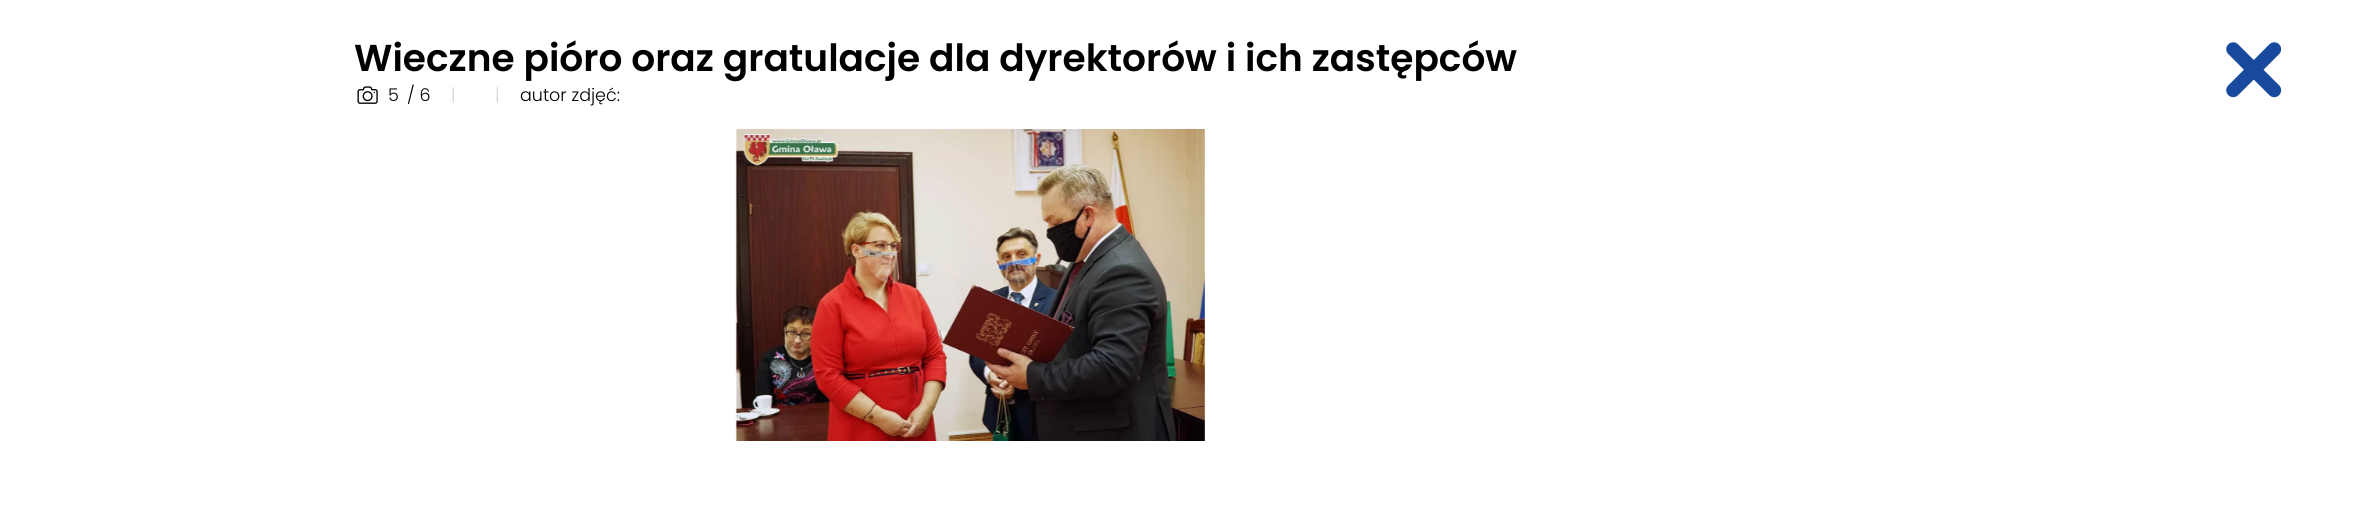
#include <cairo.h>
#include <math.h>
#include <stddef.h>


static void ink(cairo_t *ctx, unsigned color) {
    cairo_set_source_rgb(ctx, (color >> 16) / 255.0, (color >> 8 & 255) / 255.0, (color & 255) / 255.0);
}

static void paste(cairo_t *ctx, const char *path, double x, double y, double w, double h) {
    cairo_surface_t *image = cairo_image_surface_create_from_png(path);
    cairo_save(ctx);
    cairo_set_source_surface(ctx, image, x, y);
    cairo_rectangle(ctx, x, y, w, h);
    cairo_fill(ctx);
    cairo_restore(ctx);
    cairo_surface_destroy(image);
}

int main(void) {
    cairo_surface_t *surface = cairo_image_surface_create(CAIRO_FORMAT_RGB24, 2361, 521);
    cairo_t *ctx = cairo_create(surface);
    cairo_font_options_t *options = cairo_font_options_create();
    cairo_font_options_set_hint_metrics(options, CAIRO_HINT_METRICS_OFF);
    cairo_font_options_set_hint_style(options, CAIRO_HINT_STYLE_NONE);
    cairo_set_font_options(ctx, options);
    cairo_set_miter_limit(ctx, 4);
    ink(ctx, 0xFFFFFF);
    cairo_paint(ctx);
    cairo_select_font_face(ctx, "Poppins SemiBold", CAIRO_FONT_SLANT_NORMAL, CAIRO_FONT_WEIGHT_NORMAL);
    cairo_set_font_size(ctx, 37.5);
    ink(ctx, 0x000000);
    cairo_move_to(ctx, 354, 71);
    cairo_show_text(ctx, "Wieczne pióro oraz gratulacje dla dyrektorów i ich zastępców");
    paste(ctx, "media/1.png", 357, 86, 21, 18);
    cairo_select_font_face(ctx, "Poppins Light", CAIRO_FONT_SLANT_NORMAL, CAIRO_FONT_WEIGHT_NORMAL);
    cairo_set_font_size(ctx, 17.5);
    cairo_move_to(ctx, 388, 101);
    cairo_show_text(ctx, "5");
    cairo_move_to(ctx, 407, 101);
    cairo_show_text(ctx, "/ 6");
    ink(ctx, 0xD1D5DB);
    cairo_move_to(ctx, 451, 101);
    cairo_show_text(ctx, "|");
    cairo_move_to(ctx, 495, 101);
    cairo_show_text(ctx, "|");
    ink(ctx, 0x000000);
    cairo_move_to(ctx, 520, 101);
    cairo_show_text(ctx, "autor zdjęć:");
    paste(ctx, "media/2.png", 735, 129, 470, 312);
    paste(ctx, "media/3.png", 2226, 42, 56, 56);
    cairo_surface_write_to_png(surface, "image.png");
    cairo_font_options_destroy(options);
    cairo_destroy(ctx);
    cairo_surface_destroy(surface);
    return 0;
}
